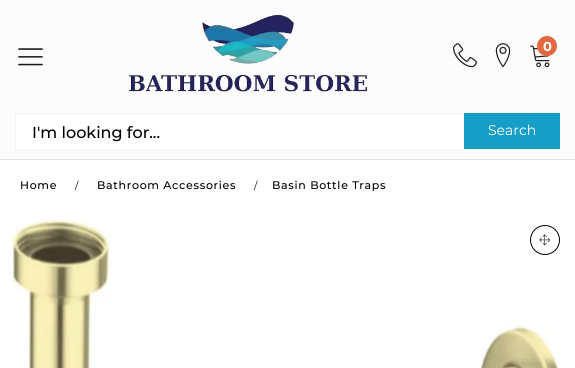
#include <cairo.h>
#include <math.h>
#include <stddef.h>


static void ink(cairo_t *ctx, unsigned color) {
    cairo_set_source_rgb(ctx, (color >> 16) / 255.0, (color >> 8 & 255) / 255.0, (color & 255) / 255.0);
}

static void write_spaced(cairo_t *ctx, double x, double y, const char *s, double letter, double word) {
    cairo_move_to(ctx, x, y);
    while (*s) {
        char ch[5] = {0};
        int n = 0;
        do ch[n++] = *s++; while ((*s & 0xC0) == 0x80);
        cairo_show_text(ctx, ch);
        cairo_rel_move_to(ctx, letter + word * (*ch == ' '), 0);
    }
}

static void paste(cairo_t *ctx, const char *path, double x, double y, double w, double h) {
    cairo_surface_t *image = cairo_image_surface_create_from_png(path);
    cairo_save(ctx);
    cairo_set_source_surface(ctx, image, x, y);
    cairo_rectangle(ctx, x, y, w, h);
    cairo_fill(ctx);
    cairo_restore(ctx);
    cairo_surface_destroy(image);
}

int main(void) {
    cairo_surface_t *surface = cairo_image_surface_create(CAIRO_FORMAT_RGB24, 575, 368);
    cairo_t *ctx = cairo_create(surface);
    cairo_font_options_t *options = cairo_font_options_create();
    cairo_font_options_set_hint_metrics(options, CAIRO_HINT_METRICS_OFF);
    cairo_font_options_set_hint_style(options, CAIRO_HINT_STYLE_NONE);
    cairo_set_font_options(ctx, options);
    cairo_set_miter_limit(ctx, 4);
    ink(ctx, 0xFFFFFF);
    cairo_paint(ctx);
    ink(ctx, 0xE0E2E4);
    cairo_rectangle(ctx, 0, 159, 575, 1);
    cairo_fill(ctx);
    ink(ctx, 0xFCFCFC);
    cairo_rectangle(ctx, 0, 0, 575, 159);
    cairo_fill(ctx);
    paste(ctx, "media/1.png", 129, 14, 239, 83);
    paste(ctx, "media/2.png", 453, 43, 24, 25);
    paste(ctx, "media/3.png", 495, 43, 16, 25);
    paste(ctx, "media/4.png", 530, 45, 20, 23);
    ink(ctx, 0xE3673F);
    cairo_arc(ctx, 547, 46, 10, 0, 2 * M_PI);
    cairo_fill(ctx);
    cairo_select_font_face(ctx, "Montserrat", CAIRO_FONT_SLANT_NORMAL, CAIRO_FONT_WEIGHT_BOLD);
    cairo_set_font_size(ctx, 13);
    ink(ctx, 0xFFFFFF);
    cairo_move_to(ctx, 543, 51);
    cairo_show_text(ctx, "0");
    paste(ctx, "media/5.png", 18, 48, 25, 18);
    cairo_rectangle(ctx, 15, 113, 449, 38);
    cairo_fill(ctx);
    ink(ctx, 0xF2F2F2);
    cairo_new_path(ctx);
    cairo_move_to(ctx, 15, 113);
    cairo_line_to(ctx, 464, 113);
    cairo_line_to(ctx, 464, 114);
    cairo_line_to(ctx, 16, 114);
    cairo_close_path(ctx);
    cairo_fill(ctx);
    cairo_new_path(ctx);
    cairo_move_to(ctx, 464, 151);
    cairo_line_to(ctx, 15, 151);
    cairo_line_to(ctx, 16, 150);
    cairo_line_to(ctx, 464, 150);
    cairo_close_path(ctx);
    cairo_fill(ctx);
    cairo_set_source_rgba(ctx, 0, 0, 0, 0.05);
    cairo_new_path(ctx);
    cairo_move_to(ctx, 15, 151);
    cairo_line_to(ctx, 15, 113);
    cairo_line_to(ctx, 16, 114);
    cairo_line_to(ctx, 16, 150);
    cairo_close_path(ctx);
    cairo_fill(ctx);
    cairo_select_font_face(ctx, "Montserrat Medium", CAIRO_FONT_SLANT_NORMAL, CAIRO_FONT_WEIGHT_NORMAL);
    cairo_set_font_size(ctx, 16);
    ink(ctx, 0x000000);
    cairo_move_to(ctx, 32, 138);
    cairo_show_text(ctx, "I'm looking for...");
    ink(ctx, 0x179EC7);
    cairo_rectangle(ctx, 464, 113, 96, 36);
    cairo_fill(ctx);
    cairo_select_font_face(ctx, "Montserrat", CAIRO_FONT_SLANT_NORMAL, CAIRO_FONT_WEIGHT_NORMAL);
    cairo_set_font_size(ctx, 14);
    ink(ctx, 0xFFFFFF);
    cairo_move_to(ctx, 488, 135);
    cairo_show_text(ctx, "Search");
    cairo_select_font_face(ctx, "Montserrat Medium", CAIRO_FONT_SLANT_NORMAL, CAIRO_FONT_WEIGHT_NORMAL);
    cairo_set_font_size(ctx, 11);
    ink(ctx, 0x000000);
    write_spaced(ctx, 20, 189, "Home", 0.7, 0);
    cairo_select_font_face(ctx, "Montserrat", CAIRO_FONT_SLANT_NORMAL, CAIRO_FONT_WEIGHT_NORMAL);
    cairo_set_font_size(ctx, 10);
    cairo_move_to(ctx, 75, 189);
    cairo_show_text(ctx, "/");
    cairo_select_font_face(ctx, "Montserrat Medium", CAIRO_FONT_SLANT_NORMAL, CAIRO_FONT_WEIGHT_NORMAL);
    cairo_set_font_size(ctx, 11);
    write_spaced(ctx, 97, 189, "Bathroom Accessories", 0.7, 0);
    cairo_select_font_face(ctx, "Montserrat", CAIRO_FONT_SLANT_NORMAL, CAIRO_FONT_WEIGHT_NORMAL);
    cairo_set_font_size(ctx, 10);
    cairo_move_to(ctx, 254, 189);
    cairo_show_text(ctx, "/");
    cairo_select_font_face(ctx, "Montserrat Medium", CAIRO_FONT_SLANT_NORMAL, CAIRO_FONT_WEIGHT_NORMAL);
    cairo_set_font_size(ctx, 11);
    write_spaced(ctx, 272, 189, "Basin Bottle Traps", 0.7, 0);
    paste(ctx, "media/6.png", 11, 219, 548, 149);
    cairo_arc(ctx, 545, 240, 14.5, 0, 2 * M_PI);
    cairo_set_line_width(ctx, 1);
    cairo_stroke(ctx);
    paste(ctx, "media/7.png", 539, 234, 11, 12);
    cairo_surface_write_to_png(surface, "image.png");
    cairo_font_options_destroy(options);
    cairo_destroy(ctx);
    cairo_surface_destroy(surface);
    return 0;
}
